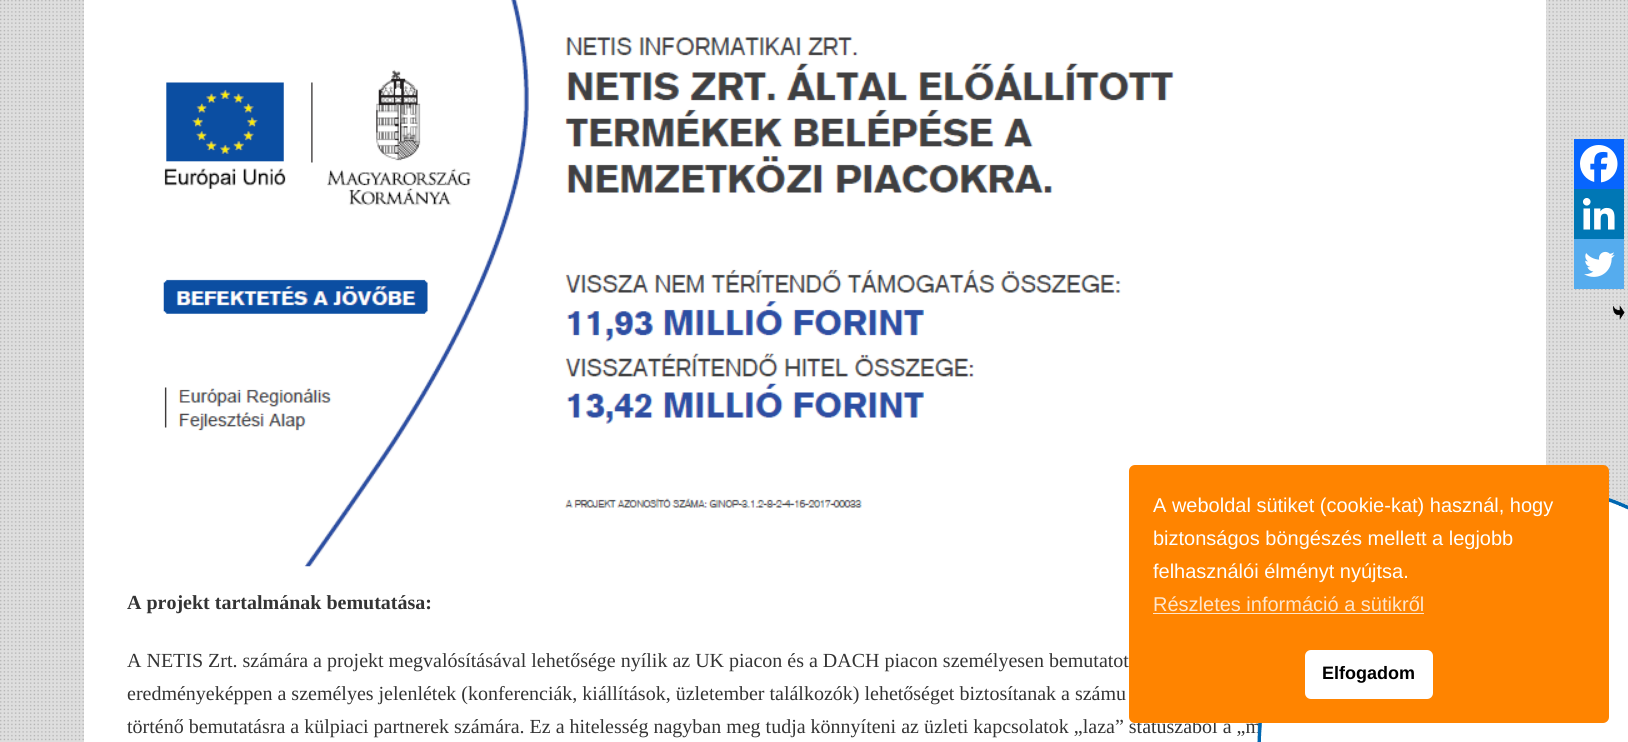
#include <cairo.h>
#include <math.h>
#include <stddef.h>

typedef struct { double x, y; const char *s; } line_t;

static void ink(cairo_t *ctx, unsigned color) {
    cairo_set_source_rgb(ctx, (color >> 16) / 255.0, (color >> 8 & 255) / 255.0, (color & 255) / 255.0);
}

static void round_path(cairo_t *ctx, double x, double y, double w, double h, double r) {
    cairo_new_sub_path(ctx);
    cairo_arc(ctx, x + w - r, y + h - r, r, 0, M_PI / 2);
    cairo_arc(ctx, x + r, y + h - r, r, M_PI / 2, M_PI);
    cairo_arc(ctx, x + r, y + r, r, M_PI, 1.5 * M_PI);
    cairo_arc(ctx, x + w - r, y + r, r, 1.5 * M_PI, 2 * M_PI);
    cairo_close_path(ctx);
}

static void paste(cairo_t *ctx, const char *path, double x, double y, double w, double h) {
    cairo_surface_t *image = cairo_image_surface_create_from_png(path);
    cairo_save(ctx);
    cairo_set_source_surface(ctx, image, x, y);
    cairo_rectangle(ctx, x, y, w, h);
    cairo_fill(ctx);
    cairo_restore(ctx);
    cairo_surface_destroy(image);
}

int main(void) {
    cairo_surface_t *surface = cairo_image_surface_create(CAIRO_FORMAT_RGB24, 1628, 742);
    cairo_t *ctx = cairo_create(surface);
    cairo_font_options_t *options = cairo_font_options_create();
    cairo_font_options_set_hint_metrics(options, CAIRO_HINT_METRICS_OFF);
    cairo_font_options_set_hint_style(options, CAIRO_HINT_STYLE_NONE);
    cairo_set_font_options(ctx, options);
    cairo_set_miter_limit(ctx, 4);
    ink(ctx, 0xFFFFFF);
    cairo_paint(ctx);
    paste(ctx, "media/1.png", 0, 0, 1628, 742);
    ink(ctx, 0xFFFFFF);
    cairo_rectangle(ctx, 84, 0, 1462, 742);
    cairo_fill(ctx);
    paste(ctx, "media/2.png", 163, 0, 1011, 567);
    ink(ctx, 0x0765FE);
    cairo_rectangle(ctx, 1574, 139, 50, 50);
    cairo_fill(ctx);
    paste(ctx, "media/3.png", 1580, 145, 38, 38);
    ink(ctx, 0x0077B5);
    cairo_rectangle(ctx, 1574, 189, 50, 50);
    cairo_fill(ctx);
    paste(ctx, "media/4.png", 1583, 198, 32, 32);
    ink(ctx, 0x55ACEE);
    cairo_rectangle(ctx, 1574, 239, 50, 50);
    cairo_fill(ctx);
    paste(ctx, "media/5.png", 1584, 251, 31, 26);
    paste(ctx, "media/6.png", 1613, 305, 12, 15);
    cairo_select_font_face(ctx, "Liberation Serif", CAIRO_FONT_SLANT_NORMAL, CAIRO_FONT_WEIGHT_BOLD);
    cairo_set_font_size(ctx, 20);
    ink(ctx, 0x343434);
    cairo_move_to(ctx, 127, 609);
    cairo_show_text(ctx, "A projekt tartalmának bemutatása:");
    cairo_select_font_face(ctx, "Liberation Serif", CAIRO_FONT_SLANT_NORMAL, CAIRO_FONT_WEIGHT_NORMAL);
    {
        static const line_t items[] = {
            {127, 667, "A NETIS Zrt. számára a projekt megvalósításával lehetősége nyílik az UK piacon és a DACH piacon személyesen bemutatot"},
            {127, 700, "eredményeképpen a személyes jelenlétek (konferenciák, kiállítások, üzletember találkozók) lehetőséget biztosítanak a számu"},
            {127, 733, "történő bemutatásra a külpiaci partnerek számára. Ez a hitelesség nagyban meg tudja könnyíteni az üzleti kapcsolatok „laza” státuszából a „m"},
        };
        for (size_t i = 0; i < sizeof items / sizeof *items; i++) {
            cairo_move_to(ctx, items[i].x, items[i].y);
            cairo_show_text(ctx, items[i].s);
        }
    }
    paste(ctx, "media/7.png", 1257, 498, 371, 244);
    ink(ctx, 0xFF8400);
    round_path(ctx, 1129, 465, 480, 258, 6);
    cairo_fill(ctx);
    cairo_select_font_face(ctx, "Liberation Sans", CAIRO_FONT_SLANT_NORMAL, CAIRO_FONT_WEIGHT_NORMAL);
    ink(ctx, 0xFFFFFF);
    {
        static const line_t items[] = {
            {1153, 512, "A weboldal sütiket (cookie-kat) használ, hogy"},
            {1153, 545, "biztonságos böngészés mellett a legjobb"},
            {1153, 578, "felhasználói élményt nyújtsa."},
        };
        for (size_t i = 0; i < sizeof items / sizeof *items; i++) {
            cairo_move_to(ctx, items[i].x, items[i].y);
            cairo_show_text(ctx, items[i].s);
        }
    }
    ink(ctx, 0xFFE6CC);
    cairo_move_to(ctx, 1153, 611);
    cairo_show_text(ctx, "Részletes információ a sütikről");
    cairo_rectangle(ctx, 1153, 613, 271, 1);
    cairo_fill(ctx);
    ink(ctx, 0xFFFFFF);
    round_path(ctx, 1305, 650, 128, 49, 6);
    cairo_fill(ctx);
    cairo_select_font_face(ctx, "Liberation Sans", CAIRO_FONT_SLANT_NORMAL, CAIRO_FONT_WEIGHT_BOLD);
    cairo_set_font_size(ctx, 18);
    ink(ctx, 0x000000);
    cairo_move_to(ctx, 1322, 679);
    cairo_show_text(ctx, "Elfogadom");
    cairo_surface_write_to_png(surface, "image.png");
    cairo_font_options_destroy(options);
    cairo_destroy(ctx);
    cairo_surface_destroy(surface);
    return 0;
}
